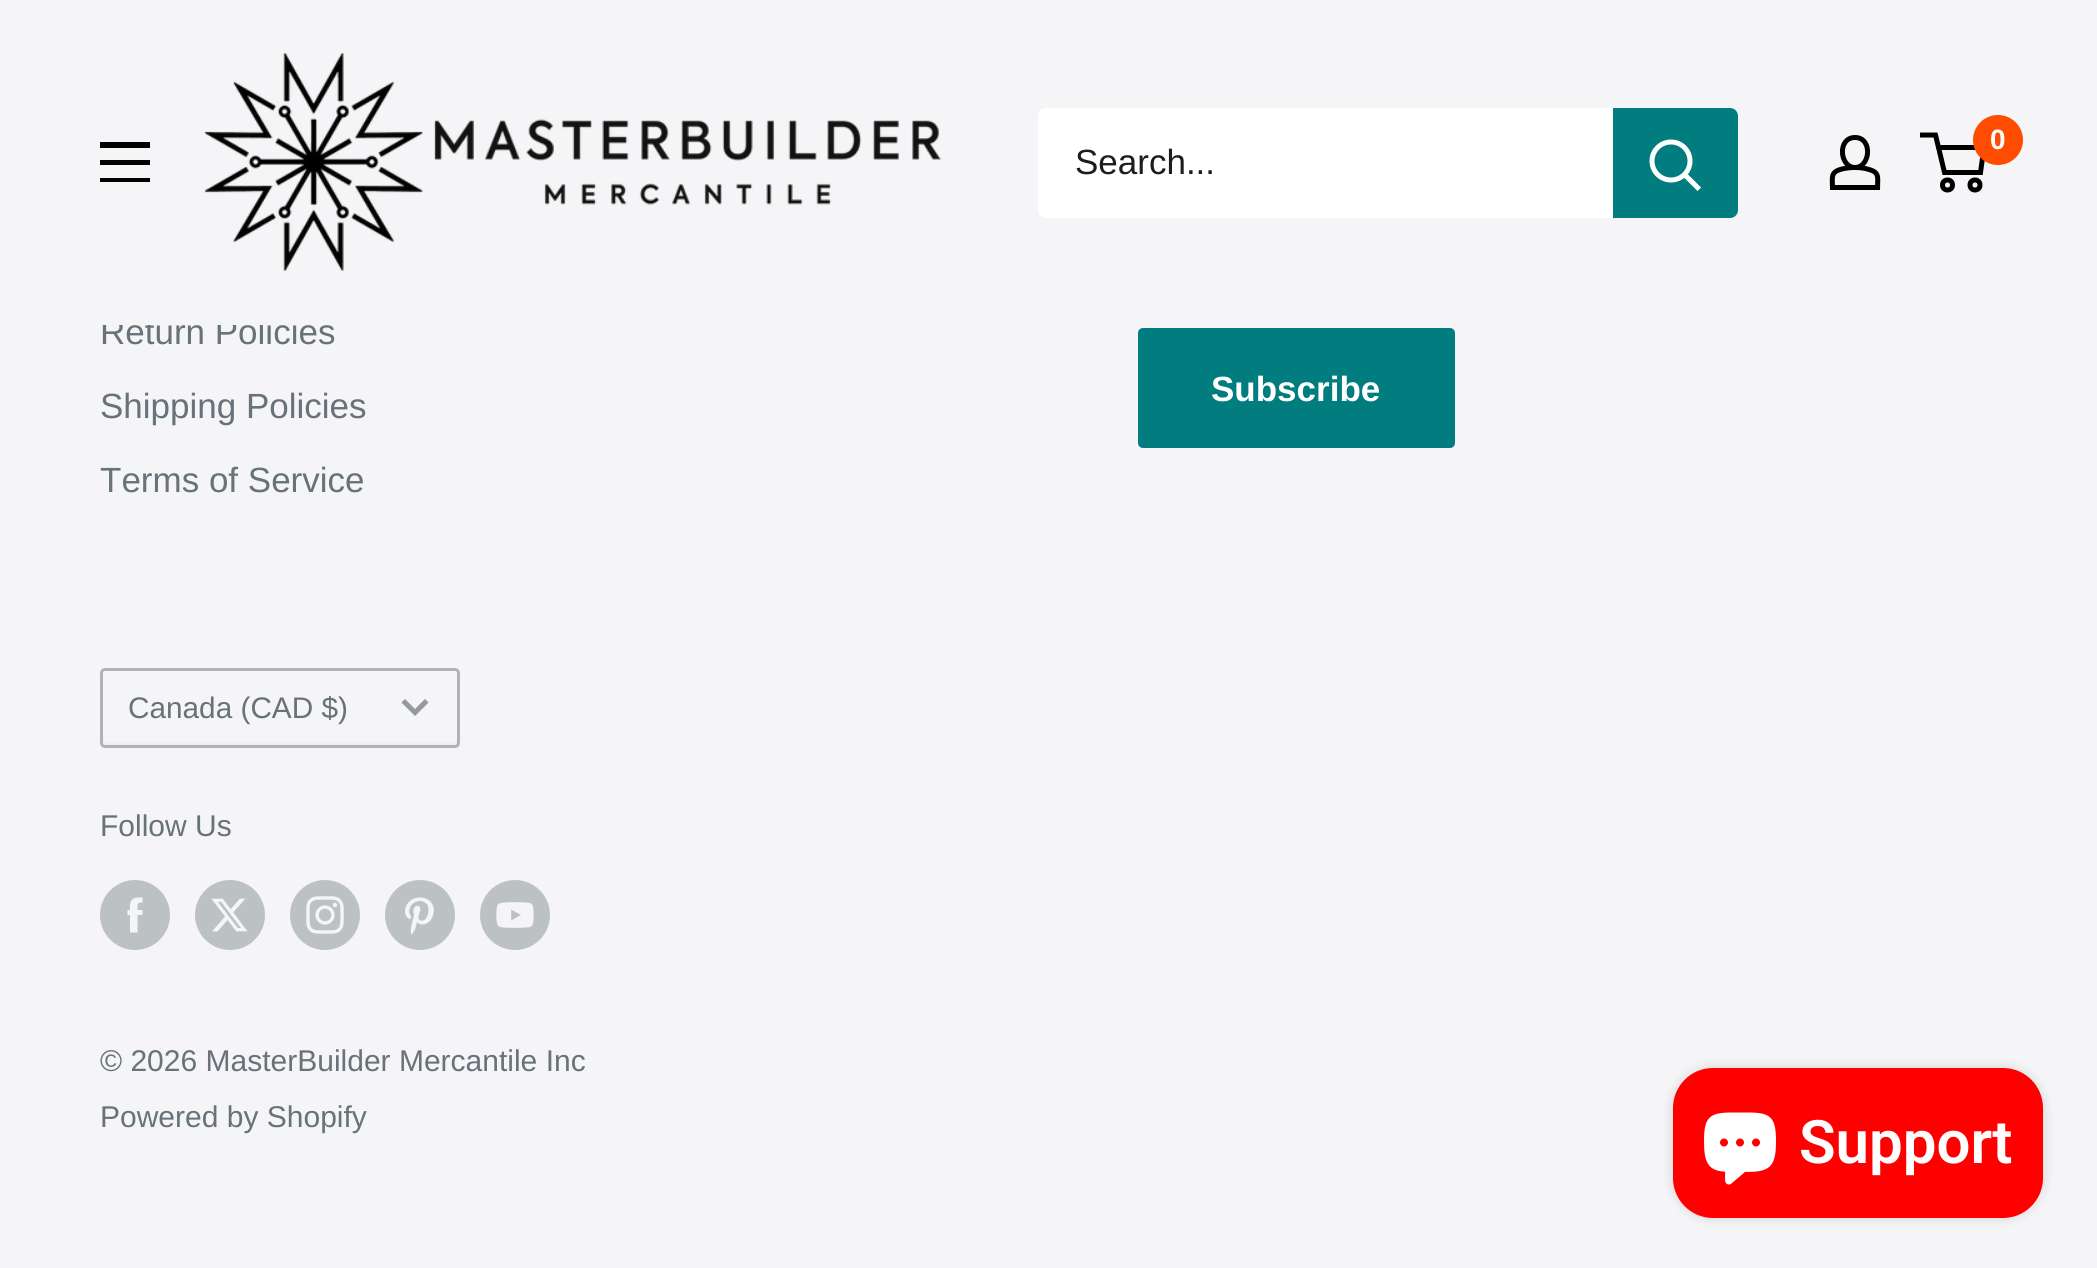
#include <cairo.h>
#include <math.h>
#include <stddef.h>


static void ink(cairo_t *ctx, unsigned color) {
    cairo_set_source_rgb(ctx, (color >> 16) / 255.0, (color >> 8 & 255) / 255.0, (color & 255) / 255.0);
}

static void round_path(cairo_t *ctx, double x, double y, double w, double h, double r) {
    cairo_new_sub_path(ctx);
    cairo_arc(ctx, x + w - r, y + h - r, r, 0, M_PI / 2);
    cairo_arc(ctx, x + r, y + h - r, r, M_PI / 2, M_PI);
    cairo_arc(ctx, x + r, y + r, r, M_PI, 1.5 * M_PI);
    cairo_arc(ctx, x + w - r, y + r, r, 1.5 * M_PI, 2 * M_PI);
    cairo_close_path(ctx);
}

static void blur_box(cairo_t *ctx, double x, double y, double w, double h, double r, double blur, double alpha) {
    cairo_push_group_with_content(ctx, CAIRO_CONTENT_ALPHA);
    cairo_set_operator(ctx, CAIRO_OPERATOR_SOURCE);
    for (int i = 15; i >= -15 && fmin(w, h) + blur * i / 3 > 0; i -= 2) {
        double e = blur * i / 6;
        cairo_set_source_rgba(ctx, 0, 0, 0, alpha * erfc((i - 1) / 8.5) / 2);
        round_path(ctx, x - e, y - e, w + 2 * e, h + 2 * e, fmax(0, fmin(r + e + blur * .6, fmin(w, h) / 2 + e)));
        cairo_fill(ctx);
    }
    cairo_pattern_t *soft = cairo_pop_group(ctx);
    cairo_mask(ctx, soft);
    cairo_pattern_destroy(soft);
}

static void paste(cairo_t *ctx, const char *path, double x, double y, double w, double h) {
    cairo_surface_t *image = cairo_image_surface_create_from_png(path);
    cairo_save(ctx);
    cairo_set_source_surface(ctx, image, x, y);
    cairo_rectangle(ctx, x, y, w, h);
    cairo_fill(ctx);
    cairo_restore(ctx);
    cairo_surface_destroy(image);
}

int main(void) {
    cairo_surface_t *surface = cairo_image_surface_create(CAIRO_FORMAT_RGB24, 2097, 1268);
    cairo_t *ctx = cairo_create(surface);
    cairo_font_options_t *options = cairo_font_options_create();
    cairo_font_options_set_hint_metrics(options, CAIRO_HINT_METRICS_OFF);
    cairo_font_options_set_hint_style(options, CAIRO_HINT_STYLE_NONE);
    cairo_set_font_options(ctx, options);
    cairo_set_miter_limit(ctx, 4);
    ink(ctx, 0xF5F5F7);
    cairo_paint(ctx);
    cairo_select_font_face(ctx, "Liberation Sans", CAIRO_FONT_SLANT_NORMAL, CAIRO_FONT_WEIGHT_NORMAL);
    cairo_set_font_size(ctx, 35);
    ink(ctx, 0x677279);
    cairo_move_to(ctx, 100, 344);
    cairo_show_text(ctx, "Return Policies");
    ink(ctx, 0xF5F5F7);
    cairo_rectangle(ctx, 102, 318, 195, 7);
    cairo_fill(ctx);
    paste(ctx, "media/1.png", 204, 53, 738, 218);
    cairo_new_path(ctx);
    cairo_move_to(ctx, 1855, 167.5);
    cairo_curve_to(ctx, 1859.5, 167.5, 1864.5, 168, 1869, 169.5);
    cairo_curve_to(ctx, 1880, 172.5, 1877.5, 178, 1877.5, 187.5);
    cairo_line_to(ctx, 1832.5, 187.5);
    cairo_curve_to(ctx, 1832.5, 177.5, 1830, 172, 1842, 169);
    cairo_curve_to(ctx, 1846, 168, 1850.5, 167.5, 1855, 167.5);
    cairo_close_path(ctx);
    cairo_move_to(ctx, 1855, 167.5);
    cairo_curve_to(ctx, 1839.5, 167.5, 1837, 137.5, 1855, 137.5);
    cairo_curve_to(ctx, 1873, 137.5, 1870.5, 167.5, 1855, 167.5);
    cairo_close_path(ctx);
    ink(ctx, 0x000000);
    cairo_set_line_width(ctx, 5);
    cairo_stroke(ctx);
    cairo_arc(ctx, 1947.5, 185, 5, 0, 2 * M_PI);
    cairo_stroke(ctx);
    cairo_arc(ctx, 1975, 185, 5, 0, 2 * M_PI);
    cairo_stroke(ctx);
    cairo_new_path(ctx);
    cairo_move_to(ctx, 1938.5, 147.5);
    cairo_line_to(ctx, 1984, 147.5);
    cairo_line_to(ctx, 1980.5, 172.5);
    cairo_line_to(ctx, 1944.5, 172.5);
    cairo_line_to(ctx, 1935.5, 135);
    cairo_line_to(ctx, 1920, 135);
    cairo_stroke(ctx);
    ink(ctx, 0xFF4C00);
    cairo_arc(ctx, 1998, 140, 25, 0, 2 * M_PI);
    cairo_fill(ctx);
    cairo_select_font_face(ctx, "Liberation Sans", CAIRO_FONT_SLANT_NORMAL, CAIRO_FONT_WEIGHT_BOLD);
    cairo_set_font_size(ctx, 28);
    ink(ctx, 0xFFFFFF);
    cairo_move_to(ctx, 1990, 149);
    cairo_show_text(ctx, "0");
    ink(ctx, 0x000000);
    cairo_set_fill_rule(ctx, CAIRO_FILL_RULE_EVEN_ODD);
    cairo_new_path(ctx);
    cairo_move_to(ctx, 100, 178);
    cairo_line_to(ctx, 150, 178);
    cairo_line_to(ctx, 150, 182);
    cairo_line_to(ctx, 100, 182);
    cairo_close_path(ctx);
    cairo_move_to(ctx, 100, 142);
    cairo_line_to(ctx, 150, 142);
    cairo_line_to(ctx, 150, 148);
    cairo_line_to(ctx, 100, 148);
    cairo_close_path(ctx);
    cairo_move_to(ctx, 100, 160);
    cairo_line_to(ctx, 150, 160);
    cairo_line_to(ctx, 150, 165);
    cairo_line_to(ctx, 100, 165);
    cairo_close_path(ctx);
    cairo_fill(ctx);
    ink(ctx, 0xFFFFFF);
    round_path(ctx, 1038, 108, 700, 110, 8);
    cairo_fill(ctx);
    cairo_select_font_face(ctx, "Liberation Sans", CAIRO_FONT_SLANT_NORMAL, CAIRO_FONT_WEIGHT_NORMAL);
    cairo_set_font_size(ctx, 35);
    ink(ctx, 0x1D1D1F);
    cairo_move_to(ctx, 1075, 174);
    cairo_show_text(ctx, "Search...");
    ink(ctx, 0x017C7F);
    cairo_new_path(ctx);
    cairo_move_to(ctx, 1613, 108);
    cairo_line_to(ctx, 1730, 108);
    cairo_curve_to(ctx, 1734.5, 108, 1738, 111.5, 1738, 116);
    cairo_line_to(ctx, 1738, 210);
    cairo_curve_to(ctx, 1738, 214.5, 1734.5, 218, 1730, 218);
    cairo_line_to(ctx, 1613, 218);
    cairo_close_path(ctx);
    cairo_fill(ctx);
    cairo_new_path(ctx);
    cairo_move_to(ctx, 1697.5, 187.5);
    cairo_line_to(ctx, 1685, 175);
    ink(ctx, 0xFFFFFF);
    cairo_set_line_cap(ctx, CAIRO_LINE_CAP_SQUARE);
    cairo_stroke(ctx);
    cairo_arc(ctx, 1671, 161, 19, 0, 2 * M_PI);
    cairo_set_line_cap(ctx, CAIRO_LINE_CAP_BUTT);
    cairo_stroke(ctx);
    ink(ctx, 0x677279);
    cairo_move_to(ctx, 100, 418);
    cairo_show_text(ctx, "Shipping Policies");
    cairo_move_to(ctx, 100, 492);
    cairo_show_text(ctx, "Terms of Service");
    ink(ctx, 0x017C7F);
    round_path(ctx, 1138, 328, 317, 120, 5);
    cairo_fill(ctx);
    cairo_select_font_face(ctx, "Liberation Sans", CAIRO_FONT_SLANT_NORMAL, CAIRO_FONT_WEIGHT_BOLD);
    ink(ctx, 0xFFFFFF);
    cairo_move_to(ctx, 1211, 401);
    cairo_show_text(ctx, "Subscribe");
    ink(ctx, 0xEFF0F1);
    cairo_set_fill_rule(ctx, CAIRO_FILL_RULE_WINDING);
    cairo_new_path(ctx);
    cairo_move_to(ctx, 103, 741);
    cairo_line_to(ctx, 103, 742);
    cairo_curve_to(ctx, 103, 744, 104, 745, 106, 745);
    cairo_line_to(ctx, 456, 745);
    cairo_curve_to(ctx, 457, 745, 458, 744, 458, 742);
    cairo_line_to(ctx, 458, 740);
    cairo_curve_to(ctx, 458, 741, 456, 742, 455, 742);
    cairo_line_to(ctx, 105, 742);
    cairo_close_path(ctx);
    cairo_fill(ctx);
    round_path(ctx, 101.5, 669.5, 357, 77, 3.5);
    cairo_set_source_rgba(ctx, 0.404, 0.447, 0.475, 0.5);
    cairo_set_line_width(ctx, 3);
    cairo_stroke(ctx);
    cairo_select_font_face(ctx, "Liberation Sans", CAIRO_FONT_SLANT_NORMAL, CAIRO_FONT_WEIGHT_NORMAL);
    cairo_set_font_size(ctx, 29.75);
    ink(ctx, 0x677279);
    cairo_move_to(ctx, 128, 718);
    cairo_show_text(ctx, "Canada (CAD $)");
    cairo_new_path(ctx);
    cairo_move_to(ctx, 425, 702.5);
    cairo_line_to(ctx, 415, 712.5);
    cairo_line_to(ctx, 405, 702.5);
    ink(ctx, 0x92999F);
    cairo_set_line_width(ctx, 5);
    cairo_set_line_cap(ctx, CAIRO_LINE_CAP_SQUARE);
    cairo_stroke(ctx);
    cairo_set_font_size(ctx, 30);
    ink(ctx, 0x677279);
    cairo_move_to(ctx, 100, 836);
    cairo_show_text(ctx, "Follow Us");
    paste(ctx, "media/2.png", 100, 880, 70, 70);
    paste(ctx, "media/3.png", 195, 880, 70, 70);
    paste(ctx, "media/4.png", 290, 880, 70, 70);
    paste(ctx, "media/5.png", 385, 880, 70, 70);
    paste(ctx, "media/6.png", 480, 880, 70, 70);
    cairo_move_to(ctx, 100, 1071);
    cairo_show_text(ctx, "© 2026 MasterBuilder Mercantile Inc");
    cairo_move_to(ctx, 100, 1127);
    cairo_show_text(ctx, "Powered by Shopify");
    ink(ctx, 0x000000);
    blur_box(ctx, 1673, 1068, 370, 150, 40, 6, 0.15);
    ink(ctx, 0xFF0000);
    round_path(ctx, 1673, 1068, 370, 150, 40);
    cairo_fill(ctx);
    paste(ctx, "media/7.png", 1704, 1112, 72, 73);
    cairo_select_font_face(ctx, "Roboto SemiBold", CAIRO_FONT_SLANT_NORMAL, CAIRO_FONT_WEIGHT_NORMAL);
    cairo_set_font_size(ctx, 60);
    ink(ctx, 0xFFFFFF);
    cairo_move_to(ctx, 1799, 1163);
    cairo_show_text(ctx, "Support");
    cairo_surface_write_to_png(surface, "image.png");
    cairo_font_options_destroy(options);
    cairo_destroy(ctx);
    cairo_surface_destroy(surface);
    return 0;
}
